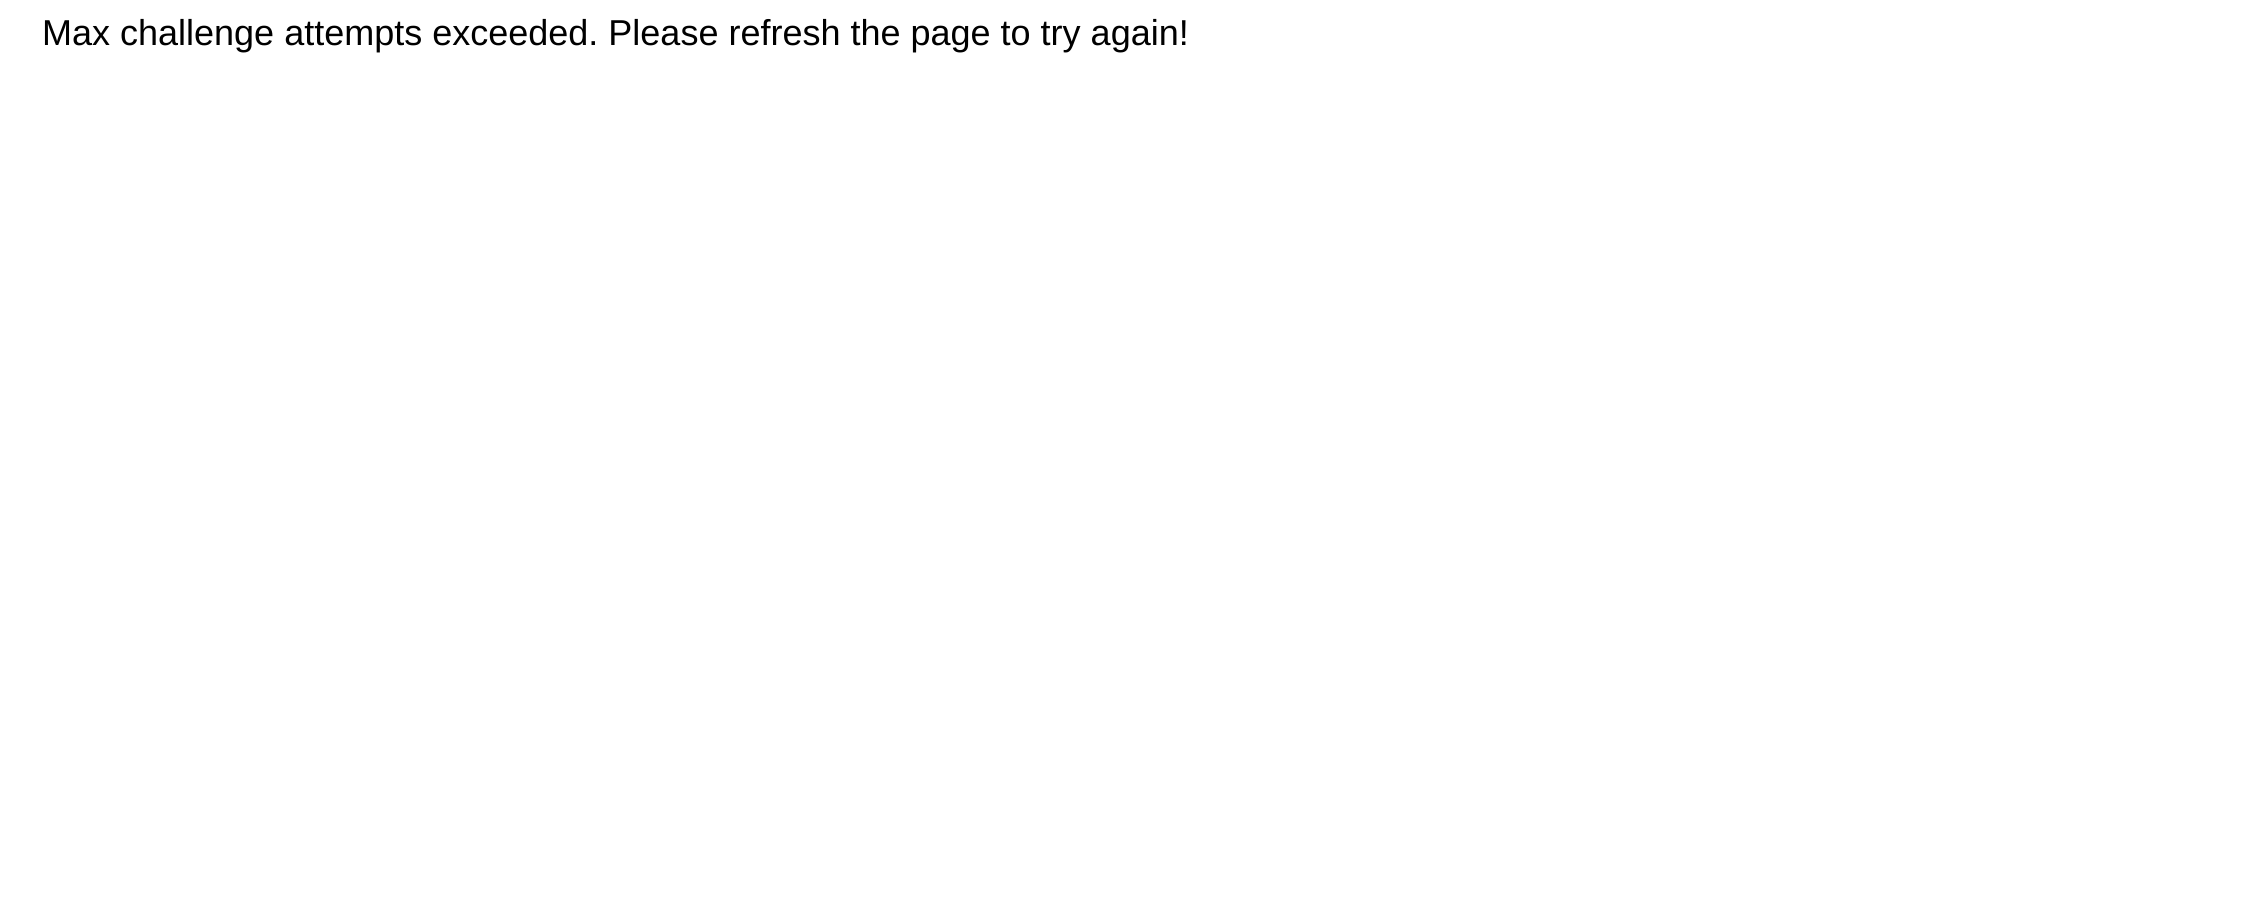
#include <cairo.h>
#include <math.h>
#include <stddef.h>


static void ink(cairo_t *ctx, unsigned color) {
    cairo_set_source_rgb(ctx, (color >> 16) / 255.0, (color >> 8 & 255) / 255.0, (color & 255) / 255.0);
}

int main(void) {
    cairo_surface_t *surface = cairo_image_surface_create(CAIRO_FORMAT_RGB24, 2255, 915);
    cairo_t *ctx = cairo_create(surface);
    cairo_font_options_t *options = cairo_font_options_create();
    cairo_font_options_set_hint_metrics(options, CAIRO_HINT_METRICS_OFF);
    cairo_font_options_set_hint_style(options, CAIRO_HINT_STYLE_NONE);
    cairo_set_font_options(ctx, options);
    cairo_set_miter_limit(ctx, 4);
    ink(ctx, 0xFFFFFF);
    cairo_paint(ctx);
    cairo_select_font_face(ctx, "Liberation Sans", CAIRO_FONT_SLANT_NORMAL, CAIRO_FONT_WEIGHT_NORMAL);
    cairo_set_font_size(ctx, 36);
    ink(ctx, 0x000000);
    cairo_move_to(ctx, 42, 45);
    cairo_show_text(ctx, "Max challenge attempts exceeded. Please refresh the page to try again!");
    cairo_surface_write_to_png(surface, "image.png");
    cairo_font_options_destroy(options);
    cairo_destroy(ctx);
    cairo_surface_destroy(surface);
    return 0;
}
